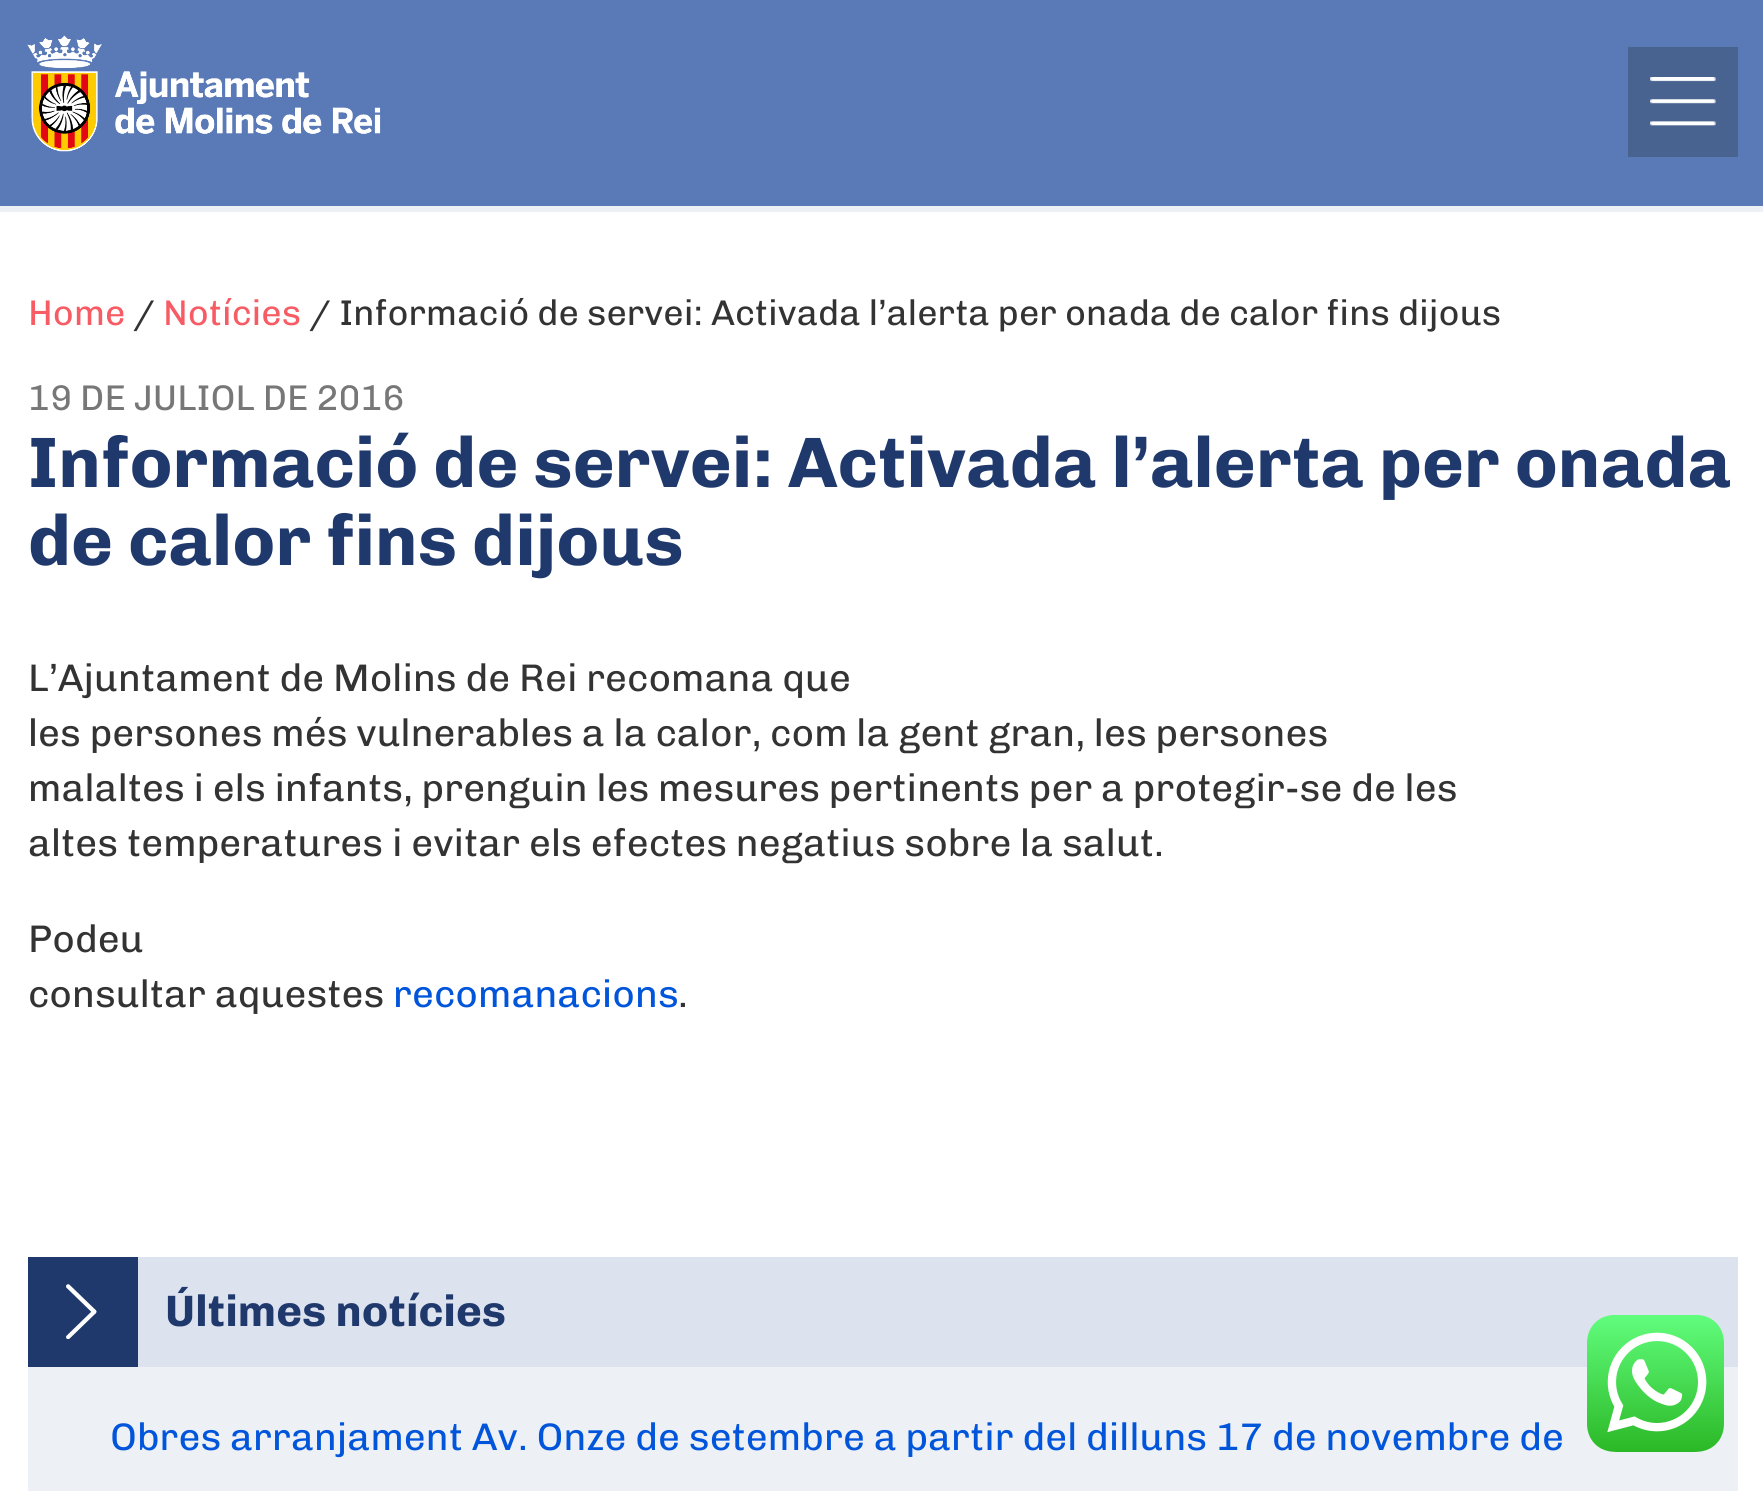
#include <cairo.h>
#include <math.h>
#include <stddef.h>

typedef struct { double x, y; const char *s; } line_t;
typedef struct { double x, y, w, h; unsigned color; } box_t;

static void ink(cairo_t *ctx, unsigned color) {
    cairo_set_source_rgb(ctx, (color >> 16) / 255.0, (color >> 8 & 255) / 255.0, (color & 255) / 255.0);
}

static void paste(cairo_t *ctx, const char *path, double x, double y, double w, double h) {
    cairo_surface_t *image = cairo_image_surface_create_from_png(path);
    cairo_save(ctx);
    cairo_set_source_surface(ctx, image, x, y);
    cairo_rectangle(ctx, x, y, w, h);
    cairo_fill(ctx);
    cairo_restore(ctx);
    cairo_surface_destroy(image);
}

int main(void) {
    cairo_surface_t *surface = cairo_image_surface_create(CAIRO_FORMAT_RGB24, 1763, 1491);
    cairo_t *ctx = cairo_create(surface);
    cairo_font_options_t *options = cairo_font_options_create();
    cairo_font_options_set_hint_metrics(options, CAIRO_HINT_METRICS_OFF);
    cairo_font_options_set_hint_style(options, CAIRO_HINT_STYLE_NONE);
    cairo_set_font_options(ctx, options);
    cairo_set_miter_limit(ctx, 4);
    ink(ctx, 0xFFFFFF);
    cairo_paint(ctx);
    ink(ctx, 0xEDF0F5);
    cairo_rectangle(ctx, 0, 206, 1763, 6);
    cairo_fill(ctx);
    ink(ctx, 0x5A7AB7);
    cairo_rectangle(ctx, 0, 0, 1763, 206);
    cairo_fill(ctx);
    paste(ctx, "media/1.png", 27, 35, 354, 117);
    ink(ctx, 0x486390);
    cairo_rectangle(ctx, 1628, 47, 110, 110);
    cairo_fill(ctx);
    paste(ctx, "media/2.png", 1650, 77, 66, 49);
    cairo_select_font_face(ctx, "Chivo", CAIRO_FONT_SLANT_NORMAL, CAIRO_FONT_WEIGHT_NORMAL);
    cairo_set_font_size(ctx, 35.75);
    ink(ctx, 0xF75C65);
    cairo_move_to(ctx, 28, 325);
    cairo_show_text(ctx, "Home");
    ink(ctx, 0x333333);
    cairo_move_to(ctx, 133, 325);
    cairo_show_text(ctx, "/");
    ink(ctx, 0xF75C65);
    cairo_move_to(ctx, 163, 325);
    cairo_show_text(ctx, "Notícies");
    ink(ctx, 0x333333);
    cairo_move_to(ctx, 309, 325);
    cairo_show_text(ctx, "/ Informació de servei: Activada l’alerta per onada de calor fins dijous");
    ink(ctx, 0x777777);
    cairo_move_to(ctx, 28, 410);
    cairo_show_text(ctx, "19 DE JULIOL DE 2016");
    cairo_select_font_face(ctx, "Chivo", CAIRO_FONT_SLANT_NORMAL, CAIRO_FONT_WEIGHT_BOLD);
    cairo_set_font_size(ctx, 71.5);
    ink(ctx, 0x1F396D);
    cairo_move_to(ctx, 28, 487);
    cairo_show_text(ctx, "Informació de servei: Activada l’alerta per onada");
    cairo_move_to(ctx, 28, 565);
    cairo_show_text(ctx, "de calor fins dijous");
    cairo_select_font_face(ctx, "Chivo", CAIRO_FONT_SLANT_NORMAL, CAIRO_FONT_WEIGHT_NORMAL);
    cairo_set_font_size(ctx, 38.5);
    ink(ctx, 0x333333);
    {
        static const line_t items[] = {
            {28, 691, "L’Ajuntament de Molins de Rei recomana que"},
            {28, 746, "les persones més vulnerables a la calor, com la gent gran, les persones"},
            {28, 801, "malaltes i els infants, prenguin les mesures pertinents per a protegir-se de les"},
            {28, 856, "altes temperatures i evitar els efectes negatius sobre la salut."},
            {28, 952, "Podeu"},
            {28, 1007, "consultar aquestes"},
        };
        for (size_t i = 0; i < sizeof items / sizeof *items; i++) {
            cairo_move_to(ctx, items[i].x, items[i].y);
            cairo_show_text(ctx, items[i].s);
        }
    }
    ink(ctx, 0x0055DB);
    cairo_move_to(ctx, 393, 1007);
    cairo_show_text(ctx, "recomanacions");
    ink(ctx, 0x333333);
    cairo_move_to(ctx, 678, 1007);
    cairo_show_text(ctx, ".");
    {
        static const box_t items[] = {
            {28, 1367, 1710, 124, 0xEDF0F5},
            {138, 1257, 1600, 110, 0xDCE2EE},
            {28, 1257, 110, 110, 0x1F396D},
        };
        for (size_t i = 0; i < sizeof items / sizeof *items; i++) {
            ink(ctx, items[i].color);
            cairo_rectangle(ctx, items[i].x, items[i].y, items[i].w, items[i].h);
            cairo_fill(ctx);
        }
    }
    paste(ctx, "media/3.png", 66, 1284, 31, 55);
    cairo_select_font_face(ctx, "Chivo", CAIRO_FONT_SLANT_NORMAL, CAIRO_FONT_WEIGHT_BOLD);
    cairo_set_font_size(ctx, 44);
    cairo_move_to(ctx, 165, 1326);
    cairo_show_text(ctx, "Últimes notícies");
    cairo_select_font_face(ctx, "Chivo", CAIRO_FONT_SLANT_NORMAL, CAIRO_FONT_WEIGHT_NORMAL);
    cairo_set_font_size(ctx, 38.5);
    ink(ctx, 0x0055DB);
    cairo_move_to(ctx, 110, 1450);
    cairo_show_text(ctx, "Obres arranjament Av. Onze de setembre a partir del dilluns 17 de novembre de");
    paste(ctx, "media/4.png", 1587, 1315, 137, 137);
    cairo_surface_write_to_png(surface, "image.png");
    cairo_font_options_destroy(options);
    cairo_destroy(ctx);
    cairo_surface_destroy(surface);
    return 0;
}
